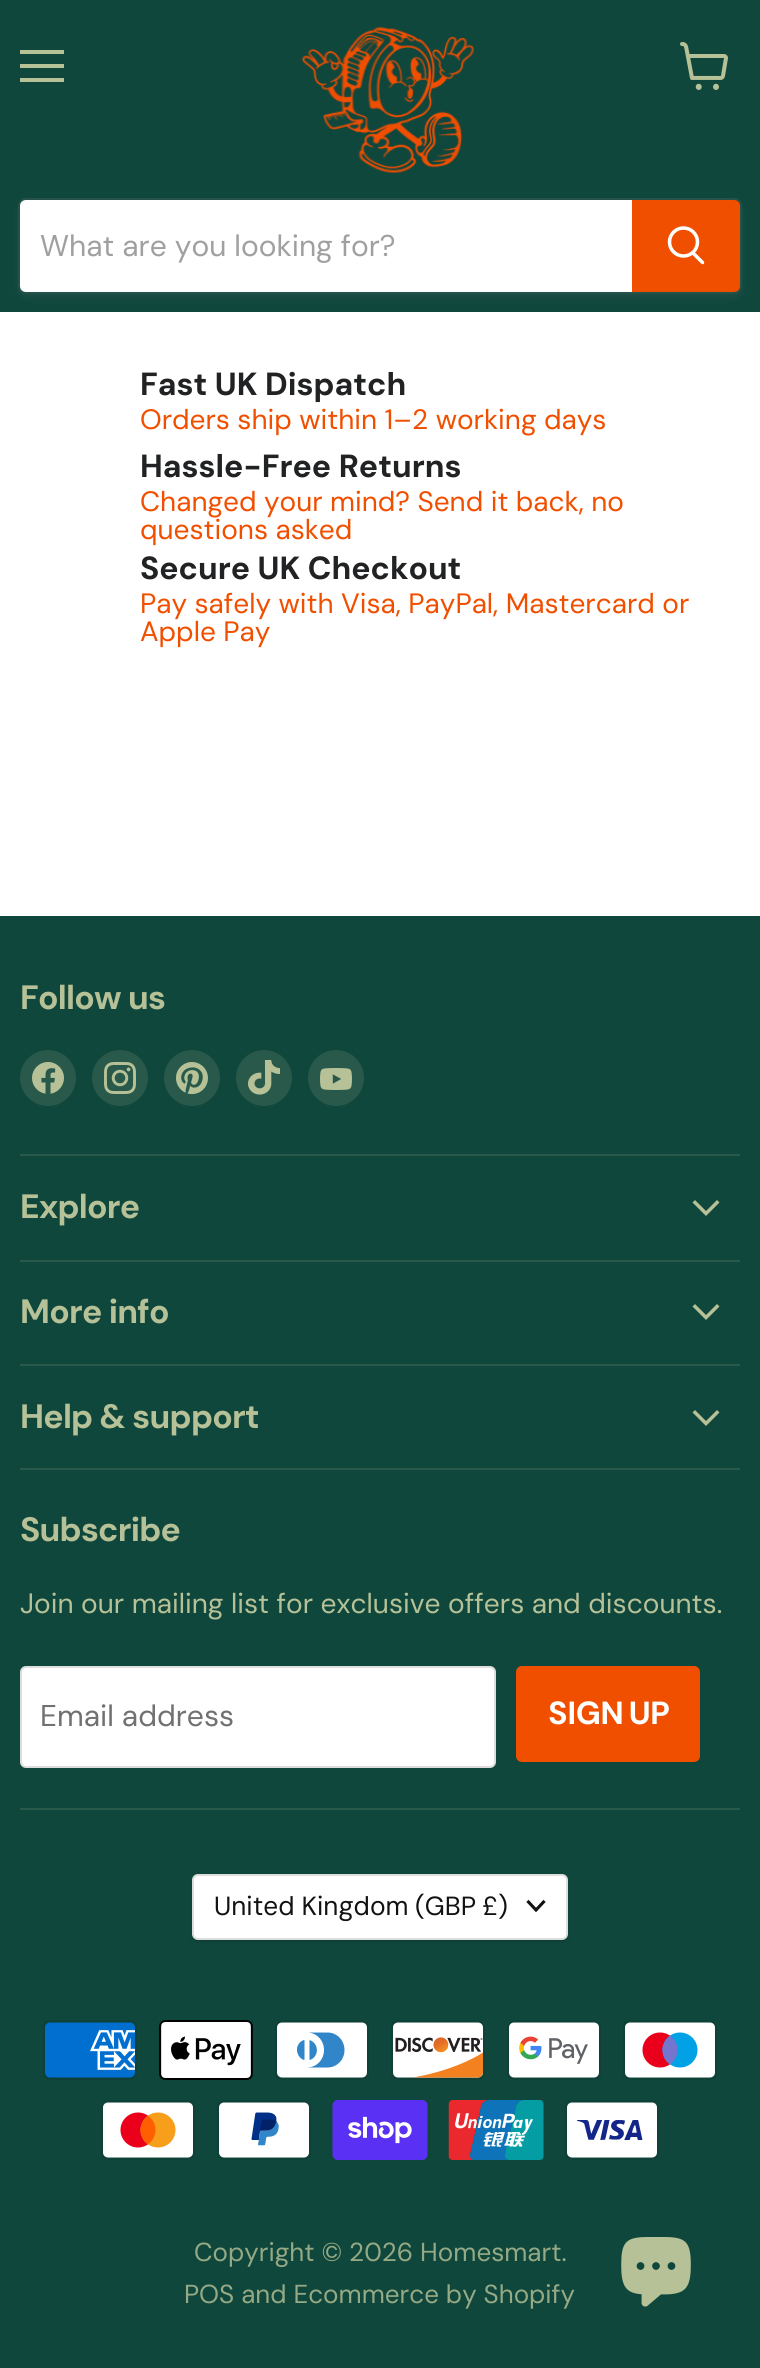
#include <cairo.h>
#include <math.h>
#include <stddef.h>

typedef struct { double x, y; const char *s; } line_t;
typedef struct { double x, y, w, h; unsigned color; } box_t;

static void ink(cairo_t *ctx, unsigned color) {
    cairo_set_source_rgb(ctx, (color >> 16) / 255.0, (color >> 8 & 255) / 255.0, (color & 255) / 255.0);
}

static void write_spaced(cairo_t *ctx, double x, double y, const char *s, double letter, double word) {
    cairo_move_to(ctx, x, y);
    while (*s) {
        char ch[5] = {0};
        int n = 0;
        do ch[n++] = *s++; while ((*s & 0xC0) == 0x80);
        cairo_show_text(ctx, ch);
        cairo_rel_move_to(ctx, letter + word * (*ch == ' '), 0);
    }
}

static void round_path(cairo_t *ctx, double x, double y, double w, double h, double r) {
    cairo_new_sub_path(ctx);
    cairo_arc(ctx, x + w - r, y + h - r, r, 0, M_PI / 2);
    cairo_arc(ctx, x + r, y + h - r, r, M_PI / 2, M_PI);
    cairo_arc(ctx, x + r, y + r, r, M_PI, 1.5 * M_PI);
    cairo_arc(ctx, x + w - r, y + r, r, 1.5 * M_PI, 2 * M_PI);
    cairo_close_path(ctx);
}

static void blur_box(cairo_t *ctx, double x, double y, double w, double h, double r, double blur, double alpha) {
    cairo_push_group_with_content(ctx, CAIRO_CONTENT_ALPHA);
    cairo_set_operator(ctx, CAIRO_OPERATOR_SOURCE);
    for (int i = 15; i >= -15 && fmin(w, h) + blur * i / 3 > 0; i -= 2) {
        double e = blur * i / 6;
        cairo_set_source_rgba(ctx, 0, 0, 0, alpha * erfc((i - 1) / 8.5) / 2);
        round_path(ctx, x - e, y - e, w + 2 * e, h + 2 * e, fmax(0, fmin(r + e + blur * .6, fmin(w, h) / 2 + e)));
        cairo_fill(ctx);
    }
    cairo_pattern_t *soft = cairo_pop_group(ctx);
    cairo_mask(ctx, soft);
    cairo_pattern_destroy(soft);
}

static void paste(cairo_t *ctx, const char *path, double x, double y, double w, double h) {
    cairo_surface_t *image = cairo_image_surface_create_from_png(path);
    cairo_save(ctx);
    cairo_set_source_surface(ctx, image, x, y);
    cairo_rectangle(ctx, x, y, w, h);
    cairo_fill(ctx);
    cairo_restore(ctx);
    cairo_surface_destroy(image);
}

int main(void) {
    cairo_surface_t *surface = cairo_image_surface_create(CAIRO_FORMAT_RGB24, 760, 2368);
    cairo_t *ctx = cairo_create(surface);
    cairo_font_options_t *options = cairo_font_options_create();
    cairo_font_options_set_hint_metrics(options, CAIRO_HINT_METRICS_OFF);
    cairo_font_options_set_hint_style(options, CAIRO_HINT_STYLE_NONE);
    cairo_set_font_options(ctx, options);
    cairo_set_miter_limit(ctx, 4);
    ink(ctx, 0xFFFFFF);
    cairo_paint(ctx);
    {
        static const box_t items[] = {
            {0, 0, 760, 312, 0x0F473C},
            {20, 50, 44, 4, 0xB6C197},
            {20, 64, 44, 4, 0xB6C197},
            {20, 78, 44, 4, 0xB6C197},
        };
        for (size_t i = 0; i < sizeof items / sizeof *items; i++) {
            ink(ctx, items[i].color);
            cairo_rectangle(ctx, items[i].x, items[i].y, items[i].w, items[i].h);
            cairo_fill(ctx);
        }
    }
    paste(ctx, "media/1.png", 680, 42, 48, 48);
    paste(ctx, "media/2.png", 302, 26, 172, 147);
    cairo_save(ctx);
    cairo_set_fill_rule(ctx, CAIRO_FILL_RULE_EVEN_ODD);
    cairo_new_path(ctx);
    cairo_move_to(ctx, 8, 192);
    cairo_line_to(ctx, 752, 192);
    cairo_line_to(ctx, 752, 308);
    cairo_line_to(ctx, 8, 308);
    cairo_close_path(ctx);
    cairo_move_to(ctx, 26, 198);
    cairo_line_to(ctx, 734, 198);
    cairo_curve_to(ctx, 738.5, 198, 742, 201.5, 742, 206);
    cairo_line_to(ctx, 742, 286);
    cairo_curve_to(ctx, 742, 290.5, 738.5, 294, 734, 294);
    cairo_line_to(ctx, 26, 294);
    cairo_curve_to(ctx, 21.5, 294, 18, 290.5, 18, 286);
    cairo_line_to(ctx, 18, 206);
    cairo_curve_to(ctx, 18, 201.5, 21.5, 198, 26, 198);
    cairo_close_path(ctx);
    cairo_clip(ctx);
    ink(ctx, 0x808080);
    blur_box(ctx, 18, 202, 724, 96, 8, 3, 0.11);
    cairo_restore(ctx);
    round_path(ctx, 19, 199, 722, 94, 7);
    cairo_set_source_rgba(ctx, 0.502, 0.502, 0.502, 0.2);
    cairo_stroke(ctx);
    ink(ctx, 0xFFFFFF);
    cairo_new_path(ctx);
    cairo_move_to(ctx, 26, 200);
    cairo_line_to(ctx, 632, 200);
    cairo_line_to(ctx, 632, 292);
    cairo_line_to(ctx, 26, 292);
    cairo_curve_to(ctx, 22.5, 292, 20, 289.5, 20, 286);
    cairo_line_to(ctx, 20, 206);
    cairo_curve_to(ctx, 20, 202.5, 22.5, 200, 26, 200);
    cairo_close_path(ctx);
    cairo_fill(ctx);
    cairo_select_font_face(ctx, "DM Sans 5", CAIRO_FONT_SLANT_NORMAL, CAIRO_FONT_WEIGHT_NORMAL);
    cairo_set_font_size(ctx, 30);
    ink(ctx, 0xA0A0A0);
    cairo_move_to(ctx, 40, 256);
    cairo_show_text(ctx, "What are you looking for?");
    ink(ctx, 0xF14F00);
    cairo_new_path(ctx);
    cairo_move_to(ctx, 633, 201);
    cairo_line_to(ctx, 734, 201);
    cairo_curve_to(ctx, 737, 201, 739, 203, 739, 206);
    cairo_line_to(ctx, 739, 286);
    cairo_curve_to(ctx, 739, 289, 737, 291, 734, 291);
    cairo_line_to(ctx, 633, 291);
    cairo_close_path(ctx);
    cairo_fill_preserve(ctx);
    cairo_stroke(ctx);
    cairo_new_path(ctx);
    cairo_move_to(ctx, 702.5, 262.5);
    cairo_line_to(ctx, 693, 253);
    ink(ctx, 0xFFFFFF);
    cairo_set_line_width(ctx, 3.5);
    cairo_set_line_cap(ctx, CAIRO_LINE_CAP_ROUND);
    cairo_stroke(ctx);
    cairo_arc(ctx, 683.5, 242, 14, 0, 2 * M_PI);
    cairo_set_line_cap(ctx, CAIRO_LINE_CAP_BUTT);
    cairo_stroke(ctx);
    cairo_select_font_face(ctx, "DM Sans", CAIRO_FONT_SLANT_NORMAL, CAIRO_FONT_WEIGHT_BOLD);
    cairo_set_font_size(ctx, 32);
    ink(ctx, 0x202223);
    cairo_move_to(ctx, 140, 395);
    cairo_show_text(ctx, "Fast UK Dispatch");
    cairo_select_font_face(ctx, "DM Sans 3", CAIRO_FONT_SLANT_NORMAL, CAIRO_FONT_WEIGHT_NORMAL);
    cairo_set_font_size(ctx, 28);
    ink(ctx, 0xF14F00);
    cairo_move_to(ctx, 140, 429);
    cairo_show_text(ctx, "Orders ship within 1–2 working days");
    cairo_select_font_face(ctx, "DM Sans", CAIRO_FONT_SLANT_NORMAL, CAIRO_FONT_WEIGHT_BOLD);
    cairo_set_font_size(ctx, 32);
    ink(ctx, 0x202223);
    cairo_move_to(ctx, 140, 477);
    cairo_show_text(ctx, "Hassle-Free Returns");
    cairo_select_font_face(ctx, "DM Sans 3", CAIRO_FONT_SLANT_NORMAL, CAIRO_FONT_WEIGHT_NORMAL);
    cairo_set_font_size(ctx, 28);
    ink(ctx, 0xF14F00);
    cairo_move_to(ctx, 140, 511);
    cairo_show_text(ctx, "Changed your mind? Send it back, no");
    cairo_move_to(ctx, 140, 539);
    cairo_show_text(ctx, "questions asked");
    cairo_select_font_face(ctx, "DM Sans", CAIRO_FONT_SLANT_NORMAL, CAIRO_FONT_WEIGHT_BOLD);
    cairo_set_font_size(ctx, 32);
    ink(ctx, 0x202223);
    cairo_move_to(ctx, 140, 579);
    cairo_show_text(ctx, "Secure UK Checkout");
    cairo_select_font_face(ctx, "DM Sans 3", CAIRO_FONT_SLANT_NORMAL, CAIRO_FONT_WEIGHT_NORMAL);
    cairo_set_font_size(ctx, 28);
    ink(ctx, 0xF14F00);
    cairo_move_to(ctx, 140, 613);
    cairo_show_text(ctx, "Pay safely with Visa, PayPal, Mastercard or");
    cairo_move_to(ctx, 140, 641);
    cairo_show_text(ctx, "Apple Pay");
    ink(ctx, 0x0F473C);
    cairo_rectangle(ctx, 0, 916, 760, 1452);
    cairo_fill(ctx);
    ink(ctx, 0x28594A);
    cairo_rectangle(ctx, 20, 1154, 720, 2);
    cairo_fill(ctx);
    cairo_select_font_face(ctx, "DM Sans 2", CAIRO_FONT_SLANT_NORMAL, CAIRO_FONT_WEIGHT_BOLD);
    cairo_set_font_size(ctx, 33.75);
    ink(ctx, 0xB6C197);
    write_spaced(ctx, 20, 1009, "Follow us", -0.75, 0);
    ink(ctx, 0x28594A);
    cairo_new_path(ctx);
    cairo_arc(ctx, 48, 1078, 28, 0, 2 * M_PI);
    cairo_fill(ctx);
    paste(ctx, "media/3.png", 32, 1062, 32, 32);
    cairo_arc(ctx, 120, 1078, 28, 0, 2 * M_PI);
    cairo_fill(ctx);
    paste(ctx, "media/4.png", 104, 1062, 32, 32);
    cairo_arc(ctx, 192, 1078, 28, 0, 2 * M_PI);
    cairo_fill(ctx);
    paste(ctx, "media/5.png", 176, 1062, 32, 33);
    cairo_arc(ctx, 264, 1078, 28, 0, 2 * M_PI);
    cairo_fill(ctx);
    paste(ctx, "media/6.png", 248, 1060, 32, 35);
    cairo_arc(ctx, 336, 1078, 28, 0, 2 * M_PI);
    cairo_fill(ctx);
    paste(ctx, "media/7.png", 320, 1068, 32, 22);
    cairo_rectangle(ctx, 20, 1260, 720, 2);
    cairo_fill(ctx);
    ink(ctx, 0xB6C197);
    write_spaced(ctx, 20, 1218, "Explore", -0.75, 0);
    cairo_new_path(ctx);
    cairo_move_to(ctx, 706, 1213.5);
    cairo_line_to(ctx, 717, 1202.5);
    cairo_move_to(ctx, 706, 1213.5);
    cairo_line_to(ctx, 695, 1202.5);
    cairo_set_line_cap(ctx, CAIRO_LINE_CAP_SQUARE);
    cairo_stroke(ctx);
    ink(ctx, 0x28594A);
    cairo_rectangle(ctx, 20, 1364, 720, 2);
    cairo_fill(ctx);
    ink(ctx, 0xB6C197);
    write_spaced(ctx, 20, 1323, "More info", -0.75, 0);
    cairo_new_path(ctx);
    cairo_move_to(ctx, 706, 1317.5);
    cairo_line_to(ctx, 717, 1306.5);
    cairo_move_to(ctx, 706, 1317.5);
    cairo_line_to(ctx, 695, 1306.5);
    cairo_stroke(ctx);
    ink(ctx, 0x28594A);
    cairo_rectangle(ctx, 20, 1468, 720, 2);
    cairo_fill(ctx);
    ink(ctx, 0xB6C197);
    write_spaced(ctx, 20, 1428, "Help & support", -0.75, 0);
    cairo_new_path(ctx);
    cairo_move_to(ctx, 706, 1423.5);
    cairo_line_to(ctx, 717, 1412.5);
    cairo_move_to(ctx, 706, 1423.5);
    cairo_line_to(ctx, 695, 1412.5);
    cairo_stroke(ctx);
    ink(ctx, 0x28594A);
    cairo_rectangle(ctx, 20, 1808, 720, 2);
    cairo_fill(ctx);
    ink(ctx, 0xB6C197);
    write_spaced(ctx, 20, 1541, "Subscribe", -0.75, 0);
    cairo_select_font_face(ctx, "DM Sans", CAIRO_FONT_SLANT_NORMAL, CAIRO_FONT_WEIGHT_NORMAL);
    cairo_set_font_size(ctx, 28.1);
    cairo_move_to(ctx, 20, 1613);
    cairo_show_text(ctx, "Join our mailing list for exclusive offers and discounts.");
    ink(ctx, 0xFFFFFF);
    round_path(ctx, 21, 1667, 474, 100, 5);
    cairo_fill_preserve(ctx);
    ink(ctx, 0xDDDDDD);
    cairo_set_line_width(ctx, 2);
    cairo_set_line_cap(ctx, CAIRO_LINE_CAP_BUTT);
    cairo_stroke(ctx);
    cairo_select_font_face(ctx, "DM Sans 5", CAIRO_FONT_SLANT_NORMAL, CAIRO_FONT_WEIGHT_NORMAL);
    cairo_set_font_size(ctx, 30);
    ink(ctx, 0x717171);
    cairo_move_to(ctx, 40, 1726);
    cairo_show_text(ctx, "Email address");
    ink(ctx, 0xF14F00);
    round_path(ctx, 517, 1667, 182, 94, 5);
    cairo_fill_preserve(ctx);
    cairo_stroke(ctx);
    cairo_select_font_face(ctx, "DM Sans 3", CAIRO_FONT_SLANT_NORMAL, CAIRO_FONT_WEIGHT_BOLD);
    cairo_set_font_size(ctx, 32);
    ink(ctx, 0xFFFFFF);
    write_spaced(ctx, 548, 1724, "SIGN UP", -0.5, -2);
    ink(ctx, 0x000000);
    blur_box(ctx, 192, 1876, 376, 66, 6, 2, 0.15);
    ink(ctx, 0xFFFFFF);
    round_path(ctx, 193, 1875, 374, 64, 5);
    cairo_fill_preserve(ctx);
    ink(ctx, 0xDDDDDD);
    cairo_stroke(ctx);
    cairo_select_font_face(ctx, "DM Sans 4", CAIRO_FONT_SLANT_NORMAL, CAIRO_FONT_WEIGHT_NORMAL);
    cairo_set_font_size(ctx, 26.25);
    ink(ctx, 0x121212);
    {
        static const line_t items[] = {
            {214, 1915, "United Kingdom"},
            {415, 1915, "(GBP"},
            {482, 1915, "£)"},
        };
        for (size_t i = 0; i < sizeof items / sizeof *items; i++) {
            cairo_move_to(ctx, items[i].x, items[i].y);
            cairo_show_text(ctx, items[i].s);
        }
    }
    cairo_new_path(ctx);
    cairo_move_to(ctx, 536, 1910);
    cairo_line_to(ctx, 543.5, 1902);
    cairo_move_to(ctx, 536, 1910);
    cairo_line_to(ctx, 528.5, 1902);
    cairo_set_line_width(ctx, 3.1);
    cairo_set_line_cap(ctx, CAIRO_LINE_CAP_SQUARE);
    cairo_stroke(ctx);
    paste(ctx, "media/8.png", 43, 2020, 94, 60);
    paste(ctx, "media/9.png", 159, 2020, 94, 60);
    paste(ctx, "media/10.png", 275, 2020, 94, 60);
    paste(ctx, "media/11.png", 391, 2020, 94, 60);
    paste(ctx, "media/12.png", 507, 2020, 94, 60);
    paste(ctx, "media/13.png", 623, 2020, 94, 60);
    paste(ctx, "media/14.png", 101, 2100, 94, 60);
    paste(ctx, "media/15.png", 217, 2100, 94, 60);
    paste(ctx, "media/16.png", 332, 2100, 96, 60);
    paste(ctx, "media/17.png", 448, 2100, 96, 60);
    paste(ctx, "media/18.png", 565, 2100, 94, 60);
    cairo_select_font_face(ctx, "DM Sans 2", CAIRO_FONT_SLANT_NORMAL, CAIRO_FONT_WEIGHT_NORMAL);
    cairo_set_font_size(ctx, 26);
    ink(ctx, 0x95A985);
    cairo_move_to(ctx, 194, 2261);
    cairo_show_text(ctx, "Copyright © 2026 Homesmart.");
    cairo_move_to(ctx, 184, 2303);
    cairo_show_text(ctx, "POS and Ecommerce by Shopify");
    paste(ctx, "media/19.png", 621, 2237, 70, 70);
    cairo_surface_write_to_png(surface, "image.png");
    cairo_font_options_destroy(options);
    cairo_destroy(ctx);
    cairo_surface_destroy(surface);
    return 0;
}
